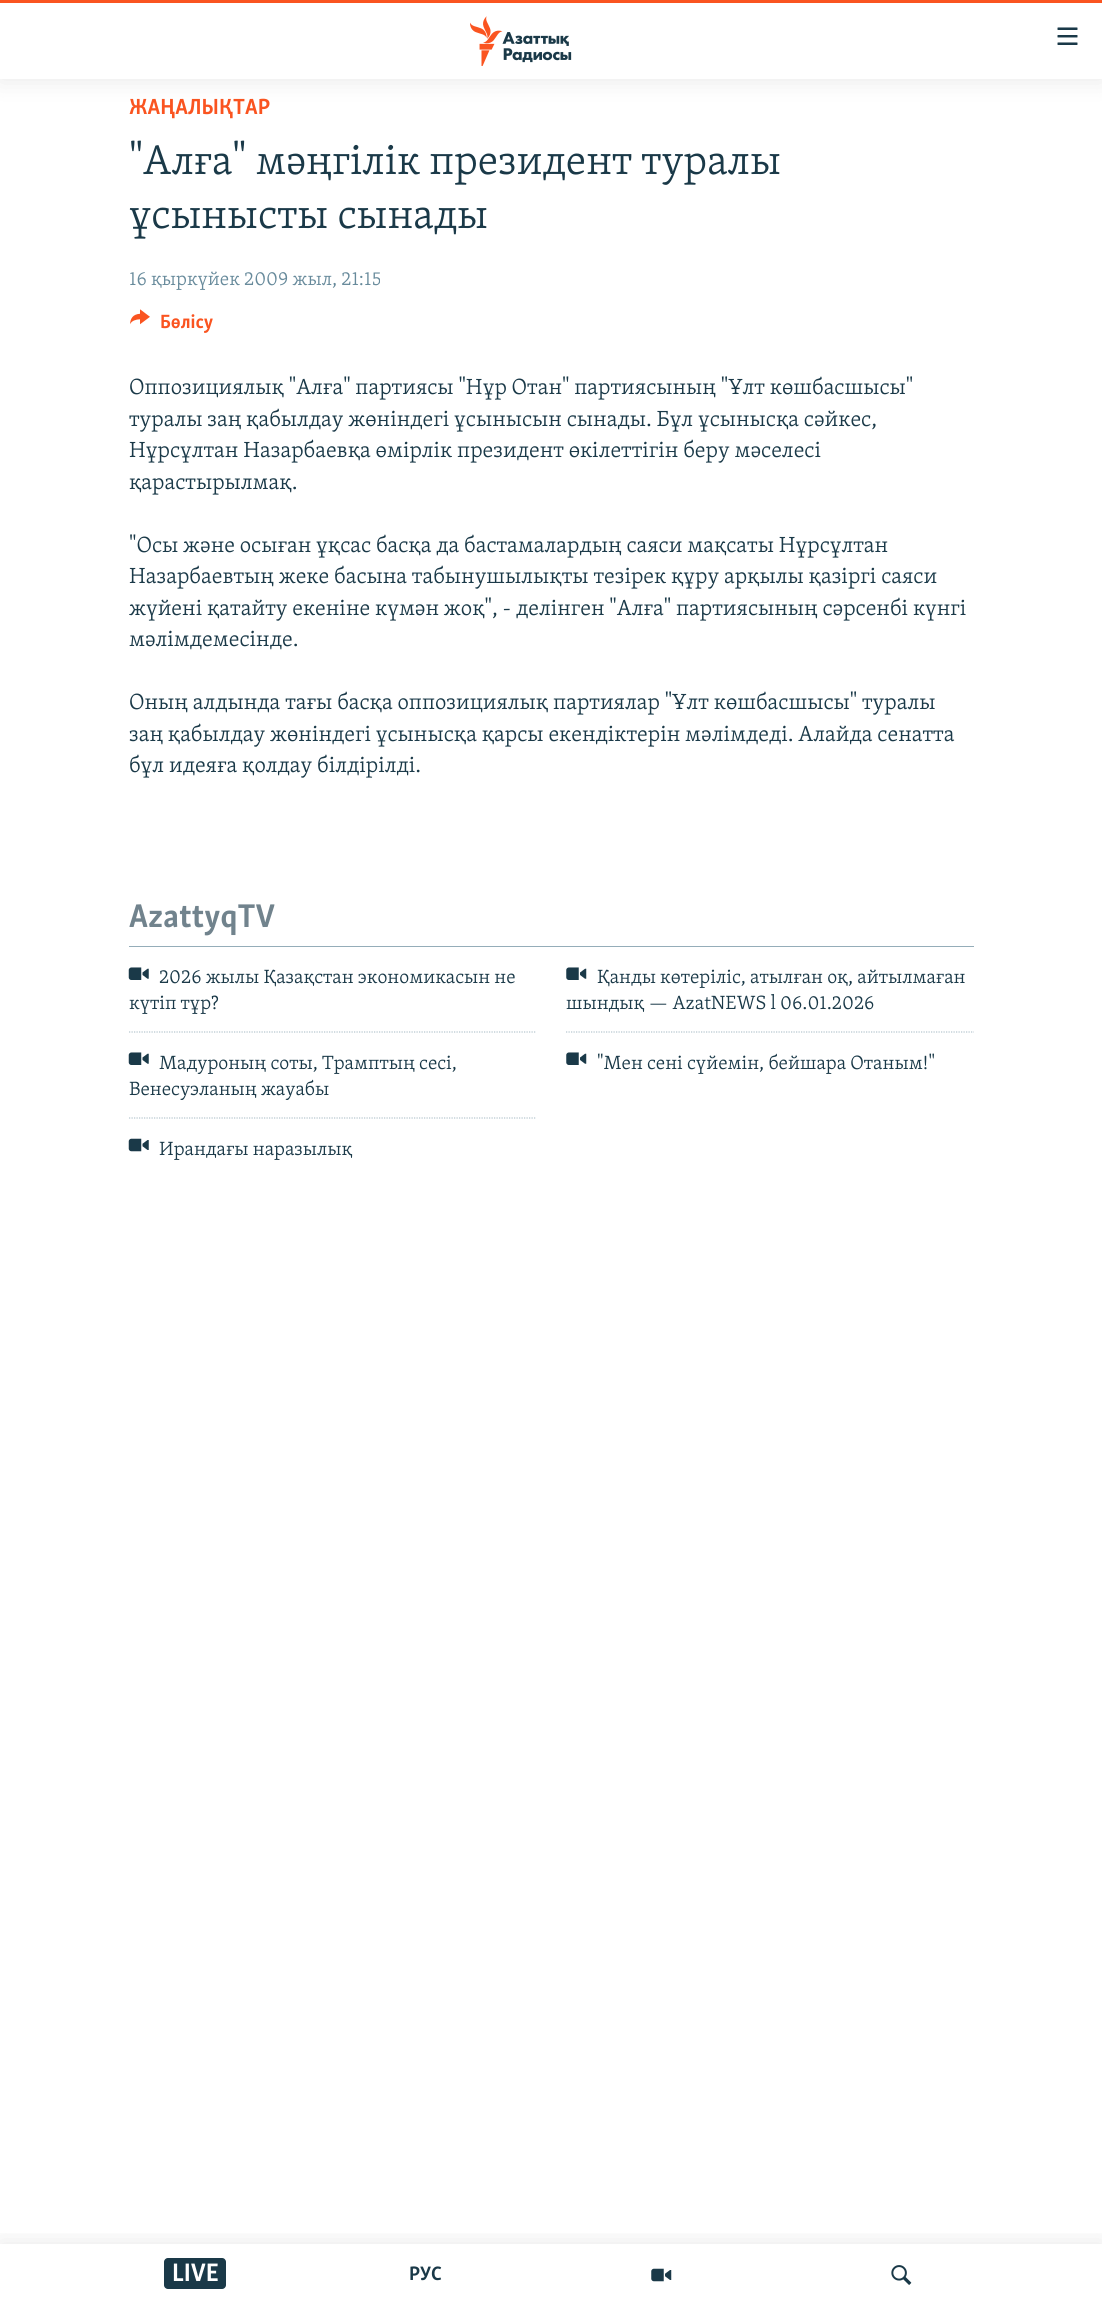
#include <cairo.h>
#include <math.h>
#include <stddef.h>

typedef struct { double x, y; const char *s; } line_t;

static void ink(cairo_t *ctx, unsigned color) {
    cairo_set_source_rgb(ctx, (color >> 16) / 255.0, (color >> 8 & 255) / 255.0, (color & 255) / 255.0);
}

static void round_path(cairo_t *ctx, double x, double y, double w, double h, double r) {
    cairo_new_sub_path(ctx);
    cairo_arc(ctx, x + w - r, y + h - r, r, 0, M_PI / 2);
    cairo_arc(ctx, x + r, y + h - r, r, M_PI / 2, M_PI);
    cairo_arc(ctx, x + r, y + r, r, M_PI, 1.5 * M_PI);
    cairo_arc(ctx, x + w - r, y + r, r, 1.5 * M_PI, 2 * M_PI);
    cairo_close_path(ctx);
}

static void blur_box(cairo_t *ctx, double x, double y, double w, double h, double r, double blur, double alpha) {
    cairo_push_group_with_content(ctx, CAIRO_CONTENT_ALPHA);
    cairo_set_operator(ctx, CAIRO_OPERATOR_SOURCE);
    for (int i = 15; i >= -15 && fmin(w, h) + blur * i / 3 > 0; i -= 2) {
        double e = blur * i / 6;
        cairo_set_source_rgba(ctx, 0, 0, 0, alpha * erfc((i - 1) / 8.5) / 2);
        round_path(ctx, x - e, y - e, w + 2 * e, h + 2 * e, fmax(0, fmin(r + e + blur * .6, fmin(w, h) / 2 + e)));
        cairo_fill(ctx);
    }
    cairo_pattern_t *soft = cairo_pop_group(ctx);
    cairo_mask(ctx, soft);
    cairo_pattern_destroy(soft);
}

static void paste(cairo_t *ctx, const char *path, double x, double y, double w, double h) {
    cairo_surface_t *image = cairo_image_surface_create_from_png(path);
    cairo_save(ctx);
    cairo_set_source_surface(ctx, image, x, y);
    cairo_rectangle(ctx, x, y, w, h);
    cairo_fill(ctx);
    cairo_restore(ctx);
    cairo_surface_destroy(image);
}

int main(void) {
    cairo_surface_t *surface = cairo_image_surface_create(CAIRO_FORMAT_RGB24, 1102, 2306);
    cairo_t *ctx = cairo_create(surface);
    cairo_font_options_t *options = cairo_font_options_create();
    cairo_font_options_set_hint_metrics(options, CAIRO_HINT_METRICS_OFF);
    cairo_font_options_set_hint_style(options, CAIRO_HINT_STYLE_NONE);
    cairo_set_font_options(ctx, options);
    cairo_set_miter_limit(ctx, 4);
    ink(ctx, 0xFFFFFF);
    cairo_paint(ctx);
    cairo_select_font_face(ctx, "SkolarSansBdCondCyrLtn", CAIRO_FONT_SLANT_NORMAL, CAIRO_FONT_WEIGHT_BOLD);
    cairo_set_font_size(ctx, 22.5);
    ink(ctx, 0xFA5420);
    cairo_move_to(ctx, 129, 114);
    cairo_show_text(ctx, "ЖАҢАЛЫҚТАР");
    cairo_select_font_face(ctx, "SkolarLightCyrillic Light", CAIRO_FONT_SLANT_NORMAL, CAIRO_FONT_WEIGHT_NORMAL);
    cairo_set_font_size(ctx, 42.75);
    ink(ctx, 0x1A3948);
    cairo_move_to(ctx, 129, 174);
    cairo_show_text(ctx, "\"Алға\" мәңгілік президент туралы");
    cairo_move_to(ctx, 129, 228);
    cairo_show_text(ctx, "ұсынысты сынады");
    cairo_set_font_size(ctx, 19.7);
    ink(ctx, 0x678A9B);
    cairo_move_to(ctx, 129, 285);
    cairo_show_text(ctx, "16 қыркүйек 2009 жыл, 21:15");
    paste(ctx, "media/1.png", 130, 309, 20, 16);
    cairo_select_font_face(ctx, "SkolarSansBdCondCyrLtn", CAIRO_FONT_SLANT_NORMAL, CAIRO_FONT_WEIGHT_BOLD);
    ink(ctx, 0xFA5420);
    cairo_move_to(ctx, 160, 328);
    cairo_show_text(ctx, "Бөлісу");
    cairo_select_font_face(ctx, "SkolarLightCyrillic Light", CAIRO_FONT_SLANT_NORMAL, CAIRO_FONT_WEIGHT_NORMAL);
    cairo_set_font_size(ctx, 22.5);
    ink(ctx, 0x1A3948);
    {
        static const line_t items[] = {
            {129, 394, "Оппозициялық \"Алға\" партиясы \"Нұр Отан\" партиясының \"Ұлт көшбасшысы\""},
            {129, 426, "туралы заң қабылдау жөніндегі ұсынысын сынады. Бұл ұсынысқа сәйкес,"},
            {129, 457, "Нұрсұлтан Назарбаевқа өмірлік президент өкілеттігін беру мәселесі"},
            {129, 489, "қарастырылмақ."},
            {129, 552, "\"Осы және осыған ұқсас басқа да бастамалардың саяси мақсаты Нұрсұлтан"},
            {129, 583, "Назарбаевтың жеке басына табынушылықты тезірек құру арқылы қазіргі саяси"},
            {129, 615, "жүйені қатайту екеніне күмән жоқ\", - делінген \"Алға\" партиясының сәрсенбі күнгі"},
            {129, 646, "мәлімдемесінде."},
            {129, 709, "Оның алдында тағы басқа оппозициялық партиялар \"Ұлт көшбасшысы\" туралы"},
            {129, 741, "заң қабылдау жөніндегі ұсынысқа қарсы екендіктерін мәлімдеді. Алайда сенатта"},
            {129, 772, "бұл идеяға қолдау білдірілді."},
        };
        for (size_t i = 0; i < sizeof items / sizeof *items; i++) {
            cairo_move_to(ctx, items[i].x, items[i].y);
            cairo_show_text(ctx, items[i].s);
        }
    }
    ink(ctx, 0x95ADB9);
    cairo_rectangle(ctx, 129, 946, 845, 1);
    cairo_fill(ctx);
    cairo_select_font_face(ctx, "SkolarSansBdCondCyrLtn", CAIRO_FONT_SLANT_NORMAL, CAIRO_FONT_WEIGHT_BOLD);
    cairo_set_font_size(ctx, 33.75);
    ink(ctx, 0x71838D);
    cairo_move_to(ctx, 129, 927);
    cairo_show_text(ctx, "AzattyqTV");
    paste(ctx, "media/2.png", 128, 967, 21, 13);
    cairo_select_font_face(ctx, "SkolarLightCyrillic Light", CAIRO_FONT_SLANT_NORMAL, CAIRO_FONT_WEIGHT_NORMAL);
    cairo_set_font_size(ctx, 19.7);
    ink(ctx, 0x1A3948);
    cairo_move_to(ctx, 159, 983);
    cairo_show_text(ctx, "2026 жылы Қазақстан экономикасын не");
    cairo_move_to(ctx, 129, 1009);
    cairo_show_text(ctx, "күтіп тұр?");
    paste(ctx, "media/3.png", 566, 967, 21, 13);
    cairo_move_to(ctx, 597, 983);
    cairo_show_text(ctx, "Қанды көтеріліс, атылған оқ, айтылмаған");
    cairo_move_to(ctx, 566, 1009);
    cairo_show_text(ctx, "шындық — AzatNEWS l 06.01.2026");
    cairo_new_path(ctx);
    cairo_move_to(ctx, 129, 1032);
    cairo_line_to(ctx, 536, 1032);
    ink(ctx, 0xB4C5CD);
    cairo_set_line_width(ctx, 1.2);
    cairo_set_dash(ctx, (double[]){1.25, 1.25}, 2, 0);
    cairo_stroke(ctx);
    paste(ctx, "media/2.png", 128, 1052, 21, 13);
    ink(ctx, 0x1A3948);
    cairo_move_to(ctx, 159, 1069);
    cairo_show_text(ctx, "Мадуроның соты, Трамптың сесі,");
    cairo_move_to(ctx, 129, 1095);
    cairo_show_text(ctx, "Венесуэланың жауабы");
    cairo_new_path(ctx);
    cairo_move_to(ctx, 566, 1032);
    cairo_line_to(ctx, 974, 1032);
    ink(ctx, 0xB4C5CD);
    cairo_stroke(ctx);
    paste(ctx, "media/3.png", 566, 1052, 21, 13);
    ink(ctx, 0x1A3948);
    cairo_move_to(ctx, 597, 1069);
    cairo_show_text(ctx, "\"Мен сені сүйемін, бейшара Отаным!\"");
    cairo_new_path(ctx);
    cairo_move_to(ctx, 129, 1118);
    cairo_line_to(ctx, 536, 1118);
    ink(ctx, 0xB4C5CD);
    cairo_stroke(ctx);
    paste(ctx, "media/4.png", 128, 1138, 21, 14);
    ink(ctx, 0x1A3948);
    cairo_move_to(ctx, 159, 1155);
    cairo_show_text(ctx, "Ирандағы наразылық");
    ink(ctx, 0x000000);
    blur_box(ctx, 0, 0, 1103, 79, 0, 12.5, 0.1);
    ink(ctx, 0xFFFFFF);
    cairo_rectangle(ctx, 0, 3, 1102, 76);
    cairo_fill(ctx);
    ink(ctx, 0xFA5420);
    cairo_rectangle(ctx, 0, 0, 1102, 3);
    cairo_fill(ctx);
    paste(ctx, "media/5.png", 470, 16, 102, 50);
    paste(ctx, "media/6.png", 1057, 27, 21, 18);
    cairo_save(ctx);
    cairo_rectangle(ctx, 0, 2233, 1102, 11);
    cairo_clip(ctx);
    ink(ctx, 0x000000);
    blur_box(ctx, 0, 2244, 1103, 62, 0, 12.5, 0.1);
    cairo_restore(ctx);
    ink(ctx, 0x1A3948);
    round_path(ctx, 164, 2258, 62, 31, 4);
    cairo_fill(ctx);
    cairo_select_font_face(ctx, "SkolarSansBdCondCyrLtn", CAIRO_FONT_SLANT_NORMAL, CAIRO_FONT_WEIGHT_BOLD);
    cairo_set_font_size(ctx, 26);
    ink(ctx, 0xFFFFFF);
    cairo_move_to(ctx, 172, 2281);
    cairo_show_text(ctx, "LIVE");
    cairo_set_font_size(ctx, 20);
    ink(ctx, 0x1A3948);
    cairo_move_to(ctx, 409, 2280);
    cairo_show_text(ctx, "РУС");
    paste(ctx, "media/7.png", 651, 2268, 21, 14);
    paste(ctx, "media/8.png", 891, 2265, 21, 20);
    cairo_surface_write_to_png(surface, "image.png");
    cairo_font_options_destroy(options);
    cairo_destroy(ctx);
    cairo_surface_destroy(surface);
    return 0;
}
